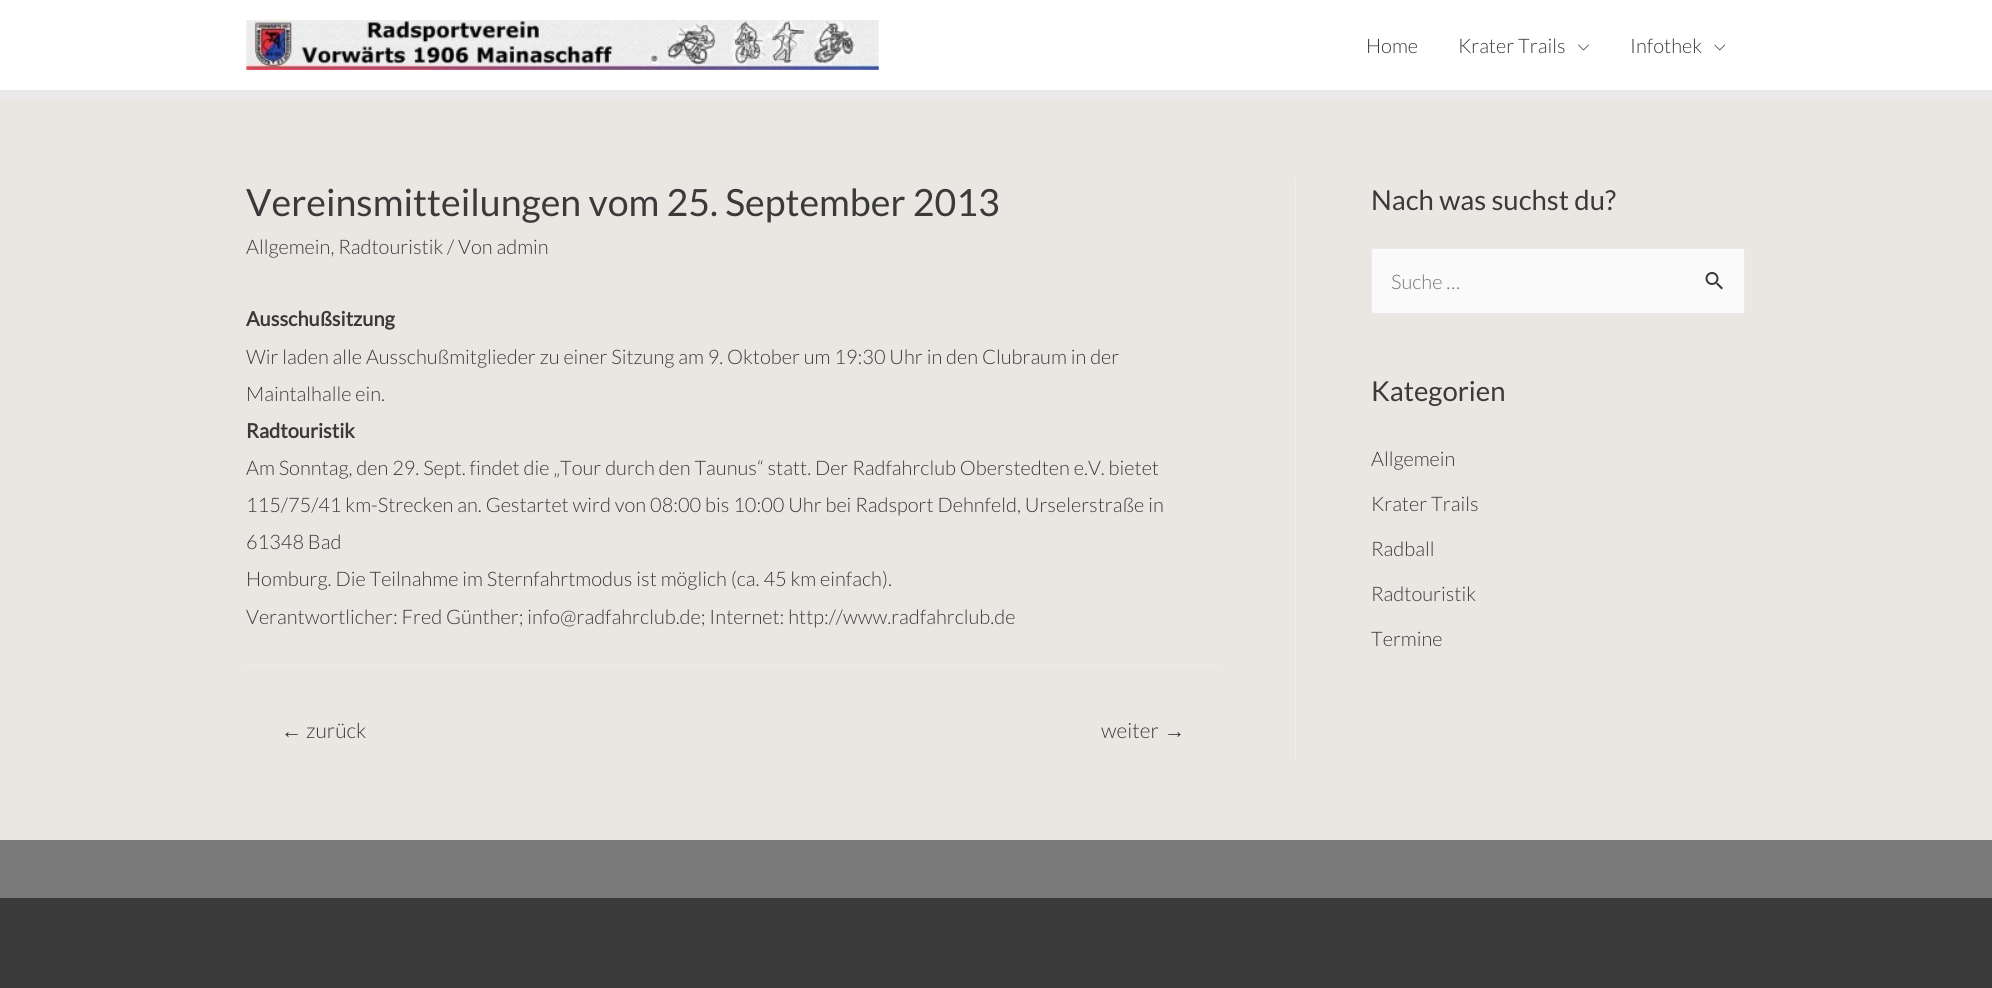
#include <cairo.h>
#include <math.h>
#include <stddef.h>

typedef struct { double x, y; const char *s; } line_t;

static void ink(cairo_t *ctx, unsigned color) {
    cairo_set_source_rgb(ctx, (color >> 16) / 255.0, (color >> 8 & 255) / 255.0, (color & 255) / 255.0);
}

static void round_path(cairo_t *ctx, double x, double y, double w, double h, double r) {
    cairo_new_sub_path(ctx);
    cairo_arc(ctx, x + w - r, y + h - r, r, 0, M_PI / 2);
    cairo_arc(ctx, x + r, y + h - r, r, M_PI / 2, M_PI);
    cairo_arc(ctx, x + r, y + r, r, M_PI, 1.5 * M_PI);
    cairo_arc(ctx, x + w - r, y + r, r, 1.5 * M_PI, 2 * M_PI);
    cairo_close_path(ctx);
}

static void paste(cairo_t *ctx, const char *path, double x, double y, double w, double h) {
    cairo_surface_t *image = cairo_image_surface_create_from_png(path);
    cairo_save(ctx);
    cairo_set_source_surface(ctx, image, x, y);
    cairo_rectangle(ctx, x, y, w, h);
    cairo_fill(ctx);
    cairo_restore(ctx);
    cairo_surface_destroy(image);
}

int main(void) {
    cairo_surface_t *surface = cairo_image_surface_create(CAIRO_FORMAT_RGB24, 1992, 988);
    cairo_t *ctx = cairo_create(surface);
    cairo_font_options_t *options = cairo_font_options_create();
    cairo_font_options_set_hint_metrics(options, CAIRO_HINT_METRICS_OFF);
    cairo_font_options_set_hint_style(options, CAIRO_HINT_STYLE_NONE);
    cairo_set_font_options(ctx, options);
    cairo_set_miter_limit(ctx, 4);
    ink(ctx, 0xEAE7E3);
    cairo_paint(ctx);
    ink(ctx, 0xFFFFFF);
    cairo_rectangle(ctx, 0, 0, 1992, 90);
    cairo_fill(ctx);
    ink(ctx, 0xEAEAEA);
    cairo_rectangle(ctx, 0, 90, 1992, 9);
    cairo_fill(ctx);
    paste(ctx, "media/1.png", 246, 20, 633, 50);
    cairo_select_font_face(ctx, "Lato Light", CAIRO_FONT_SLANT_NORMAL, CAIRO_FONT_WEIGHT_NORMAL);
    cairo_set_font_size(ctx, 20);
    ink(ctx, 0x3A3A3A);
    cairo_move_to(ctx, 1366, 53);
    cairo_show_text(ctx, "Home");
    cairo_move_to(ctx, 1458, 53);
    cairo_show_text(ctx, "Krater Trails");
    paste(ctx, "media/2.png", 1578, 44, 11, 7);
    cairo_move_to(ctx, 1630, 53);
    cairo_show_text(ctx, "Infothek");
    paste(ctx, "media/3.png", 1714, 44, 12, 7);
    ink(ctx, 0xEEEEEE);
    cairo_rectangle(ctx, 1295, 179, 1, 581);
    cairo_fill(ctx);
    cairo_select_font_face(ctx, "Lato", CAIRO_FONT_SLANT_NORMAL, CAIRO_FONT_WEIGHT_NORMAL);
    cairo_set_font_size(ctx, 37.5);
    ink(ctx, 0x3A3A3A);
    cairo_move_to(ctx, 246, 216);
    cairo_show_text(ctx, "Vereinsmitteilungen vom 25. September 2013");
    cairo_select_font_face(ctx, "Lato Light", CAIRO_FONT_SLANT_NORMAL, CAIRO_FONT_WEIGHT_NORMAL);
    cairo_set_font_size(ctx, 20);
    cairo_move_to(ctx, 246, 254);
    cairo_show_text(ctx, "Allgemein, Radtouristik / Von admin");
    cairo_select_font_face(ctx, "Lato", CAIRO_FONT_SLANT_NORMAL, CAIRO_FONT_WEIGHT_BOLD);
    cairo_move_to(ctx, 246, 326);
    cairo_show_text(ctx, "Ausschußsitzung");
    cairo_select_font_face(ctx, "Lato Light", CAIRO_FONT_SLANT_NORMAL, CAIRO_FONT_WEIGHT_NORMAL);
    cairo_move_to(ctx, 246, 364);
    cairo_show_text(ctx, "Wir laden alle Ausschußmitglieder zu einer Sitzung am 9. Oktober um 19:30 Uhr in den Clubraum in der");
    cairo_move_to(ctx, 246, 401);
    cairo_show_text(ctx, "Maintalhalle ein.");
    cairo_select_font_face(ctx, "Lato", CAIRO_FONT_SLANT_NORMAL, CAIRO_FONT_WEIGHT_BOLD);
    cairo_move_to(ctx, 246, 438);
    cairo_show_text(ctx, "Radtouristik");
    cairo_select_font_face(ctx, "Lato Light", CAIRO_FONT_SLANT_NORMAL, CAIRO_FONT_WEIGHT_NORMAL);
    {
        static const line_t items[] = {
            {246, 475, "Am Sonntag, den 29. Sept. findet die „Tour durch den Taunus“ statt. Der Radfahrclub Oberstedten e.V. bietet"},
            {246, 512, "115/75/41 km-Strecken an. Gestartet wird von 08:00 bis 10:00 Uhr bei Radsport Dehnfeld, Urselerstraße in"},
            {246, 549, "61348 Bad"},
            {246, 586, "Homburg. Die Teilnahme im Sternfahrtmodus ist möglich (ca. 45 km einfach)."},
            {246, 624, "Verantwortlicher: Fred Günther; info@radfahrclub.de; Internet: http://www.radfahrclub.de"},
        };
        for (size_t i = 0; i < sizeof items / sizeof *items; i++) {
            cairo_move_to(ctx, items[i].x, items[i].y);
            cairo_show_text(ctx, items[i].s);
        }
    }
    ink(ctx, 0xEEEEEE);
    cairo_rectangle(ctx, 246, 665, 974, 1);
    cairo_fill(ctx);
    cairo_select_font_face(ctx, "Liberation Sans", CAIRO_FONT_SLANT_NORMAL, CAIRO_FONT_WEIGHT_NORMAL);
    cairo_set_font_size(ctx, 21);
    ink(ctx, 0x3A3A3A);
    cairo_move_to(ctx, 281, 738);
    cairo_show_text(ctx, "←");
    cairo_select_font_face(ctx, "Lato Light", CAIRO_FONT_SLANT_NORMAL, CAIRO_FONT_WEIGHT_NORMAL);
    cairo_move_to(ctx, 306, 738);
    cairo_show_text(ctx, "zurück");
    cairo_move_to(ctx, 1101, 738);
    cairo_show_text(ctx, "weiter");
    cairo_select_font_face(ctx, "Liberation Sans", CAIRO_FONT_SLANT_NORMAL, CAIRO_FONT_WEIGHT_NORMAL);
    cairo_move_to(ctx, 1164, 738);
    cairo_show_text(ctx, "→");
    cairo_select_font_face(ctx, "Lato", CAIRO_FONT_SLANT_NORMAL, CAIRO_FONT_WEIGHT_NORMAL);
    cairo_set_font_size(ctx, 27.5);
    cairo_move_to(ctx, 1371, 210);
    cairo_show_text(ctx, "Nach was suchst du?");
    ink(ctx, 0xFAFAFA);
    round_path(ctx, 1371.5, 248.5, 373, 65, 2);
    cairo_fill_preserve(ctx);
    ink(ctx, 0xEAEAEA);
    cairo_set_line_width(ctx, 1);
    cairo_stroke(ctx);
    cairo_select_font_face(ctx, "Lato Light", CAIRO_FONT_SLANT_NORMAL, CAIRO_FONT_WEIGHT_NORMAL);
    cairo_set_font_size(ctx, 20);
    ink(ctx, 0x757575);
    cairo_move_to(ctx, 1391, 289);
    cairo_show_text(ctx, "Suche …");
    paste(ctx, "media/4.png", 1705, 272, 18, 18);
    cairo_select_font_face(ctx, "Lato", CAIRO_FONT_SLANT_NORMAL, CAIRO_FONT_WEIGHT_NORMAL);
    cairo_set_font_size(ctx, 27.5);
    ink(ctx, 0x3A3A3A);
    cairo_move_to(ctx, 1371, 401);
    cairo_show_text(ctx, "Kategorien");
    cairo_select_font_face(ctx, "Lato Light", CAIRO_FONT_SLANT_NORMAL, CAIRO_FONT_WEIGHT_NORMAL);
    cairo_set_font_size(ctx, 20);
    {
        static const line_t items[] = {
            {1371, 466, "Allgemein"},
            {1371, 511, "Krater Trails"},
            {1371, 556, "Radball"},
            {1371, 601, "Radtouristik"},
            {1371, 646, "Termine"},
        };
        for (size_t i = 0; i < sizeof items / sizeof *items; i++) {
            cairo_move_to(ctx, items[i].x, items[i].y);
            cairo_show_text(ctx, items[i].s);
        }
    }
    cairo_rectangle(ctx, 0, 898, 1992, 90);
    cairo_fill(ctx);
    ink(ctx, 0x7A7A7A);
    cairo_rectangle(ctx, 0, 840, 1992, 58);
    cairo_fill(ctx);
    cairo_surface_write_to_png(surface, "image.png");
    cairo_font_options_destroy(options);
    cairo_destroy(ctx);
    cairo_surface_destroy(surface);
    return 0;
}
